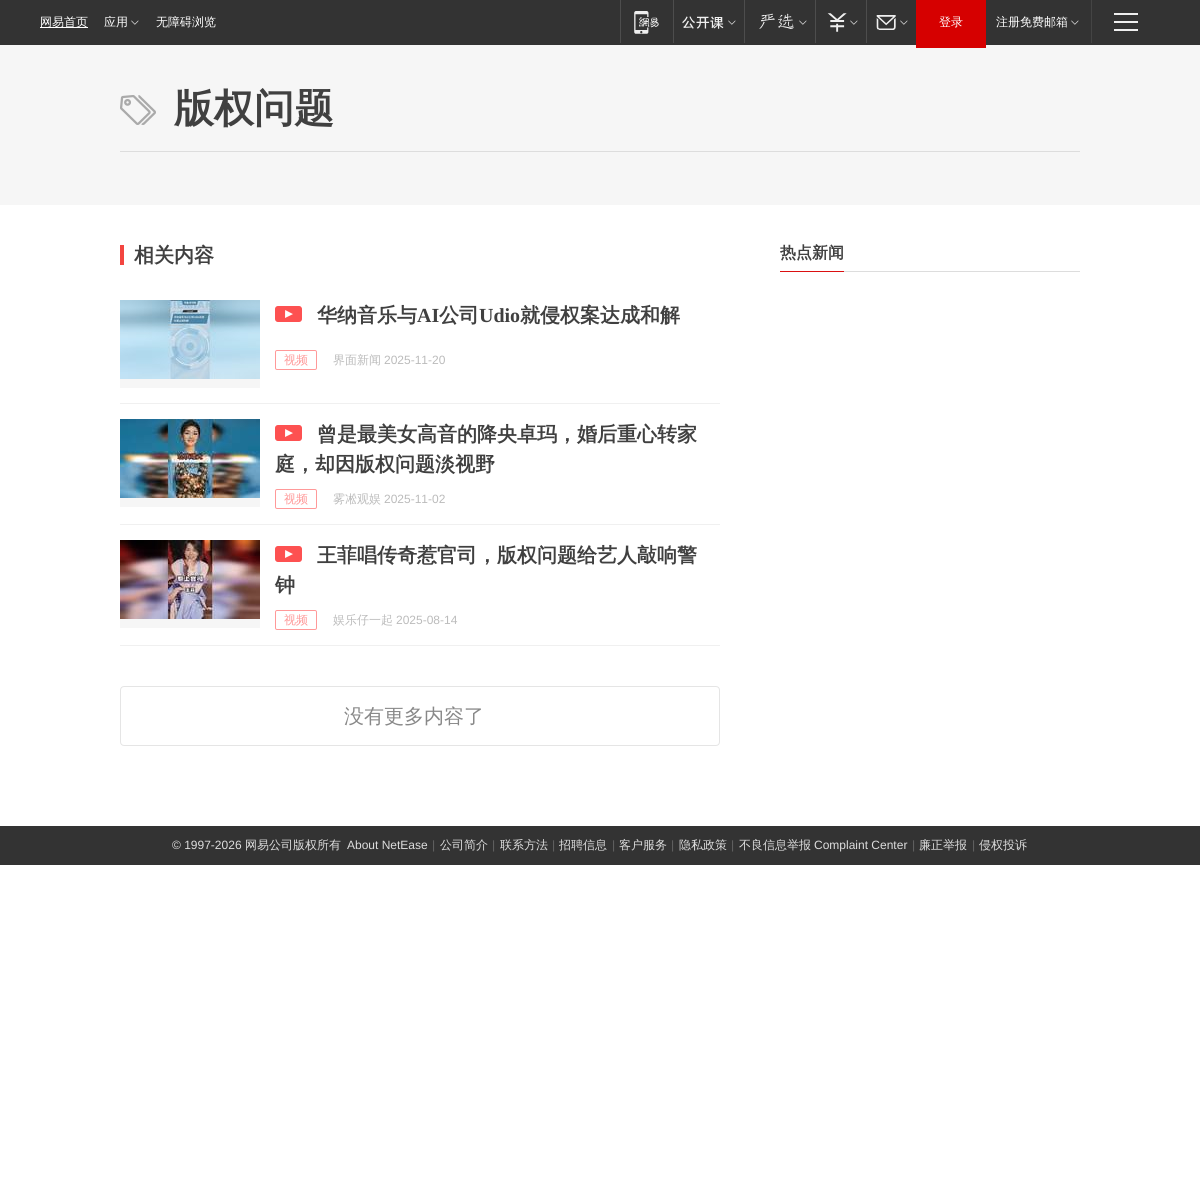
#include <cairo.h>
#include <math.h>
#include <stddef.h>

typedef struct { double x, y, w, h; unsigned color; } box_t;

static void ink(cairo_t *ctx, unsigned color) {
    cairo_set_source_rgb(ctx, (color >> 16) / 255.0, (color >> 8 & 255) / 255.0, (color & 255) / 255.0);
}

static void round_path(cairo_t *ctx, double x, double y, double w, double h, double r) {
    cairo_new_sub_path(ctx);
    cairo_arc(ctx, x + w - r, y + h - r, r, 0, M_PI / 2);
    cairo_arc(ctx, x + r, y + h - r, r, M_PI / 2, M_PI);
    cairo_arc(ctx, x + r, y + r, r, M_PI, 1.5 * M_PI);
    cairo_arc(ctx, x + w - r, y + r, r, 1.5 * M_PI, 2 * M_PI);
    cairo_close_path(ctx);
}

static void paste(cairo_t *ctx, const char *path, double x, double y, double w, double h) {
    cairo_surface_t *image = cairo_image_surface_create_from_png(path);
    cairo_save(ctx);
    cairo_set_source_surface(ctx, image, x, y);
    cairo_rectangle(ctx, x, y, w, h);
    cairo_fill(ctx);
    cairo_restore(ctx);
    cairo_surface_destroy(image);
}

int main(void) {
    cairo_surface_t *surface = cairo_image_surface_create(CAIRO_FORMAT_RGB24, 1200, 1200);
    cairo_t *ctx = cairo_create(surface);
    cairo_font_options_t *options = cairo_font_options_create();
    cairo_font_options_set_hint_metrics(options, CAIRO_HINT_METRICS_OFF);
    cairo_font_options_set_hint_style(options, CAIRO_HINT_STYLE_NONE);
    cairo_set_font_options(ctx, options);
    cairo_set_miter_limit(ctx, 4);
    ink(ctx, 0xFFFFFF);
    cairo_paint(ctx);
    ink(ctx, 0x333333);
    cairo_rectangle(ctx, 0, 0, 1200, 45);
    cairo_fill(ctx);
    ink(ctx, 0xFFFFFF);
    cairo_rectangle(ctx, 40, 27, 48, 1);
    cairo_fill(ctx);
    cairo_select_font_face(ctx, "WenQuanYi Zen Hei Medium", CAIRO_FONT_SLANT_NORMAL, CAIRO_FONT_WEIGHT_NORMAL);
    cairo_set_font_size(ctx, 12);
    cairo_move_to(ctx, 40, 26);
    cairo_show_text(ctx, "网易首页");
    cairo_move_to(ctx, 104, 26);
    cairo_show_text(ctx, "应用");
    paste(ctx, "media/1.png", 131, 20, 8, 5);
    cairo_move_to(ctx, 156, 26);
    cairo_show_text(ctx, "无障碍浏览");
    ink(ctx, 0x4D4D4D);
    cairo_rectangle(ctx, 620, 0, 1, 43);
    cairo_fill(ctx);
    paste(ctx, "media/2.png", 634, 11, 25, 23);
    cairo_rectangle(ctx, 673, 0, 1, 43);
    cairo_fill(ctx);
    paste(ctx, "media/3.png", 682, 16, 42, 13);
    paste(ctx, "media/1.png", 728, 20, 8, 5);
    cairo_rectangle(ctx, 744, 0, 1, 43);
    cairo_fill(ctx);
    paste(ctx, "media/4.png", 759, 13, 35, 16);
    paste(ctx, "media/1.png", 799, 20, 8, 5);
    cairo_rectangle(ctx, 815, 0, 1, 43);
    cairo_fill(ctx);
    paste(ctx, "media/5.png", 827, 13, 20, 19);
    paste(ctx, "media/1.png", 850, 20, 8, 5);
    cairo_rectangle(ctx, 866, 0, 1, 43);
    cairo_fill(ctx);
    paste(ctx, "media/6.png", 876, 15, 20, 15);
    paste(ctx, "media/1.png", 900, 20, 8, 5);
    ink(ctx, 0xF6F6F6);
    cairo_rectangle(ctx, 0, 45, 1200, 160);
    cairo_fill(ctx);
    ink(ctx, 0xD60000);
    cairo_rectangle(ctx, 916, 0, 70, 48);
    cairo_fill(ctx);
    ink(ctx, 0xFFFFFF);
    cairo_move_to(ctx, 939, 26);
    cairo_show_text(ctx, "登录");
    cairo_move_to(ctx, 996, 26);
    cairo_show_text(ctx, "注册免费邮箱");
    paste(ctx, "media/1.png", 1071, 20, 8, 5);
    {
        static const box_t items[] = {
            {1091, 0, 1, 43, 0x444444},
            {1114, 13, 24, 2, 0xEFEFEF},
            {1114, 21, 24, 2, 0xEFEFEF},
            {1114, 29, 24, 2, 0xEFEFEF},
        };
        for (size_t i = 0; i < sizeof items / sizeof *items; i++) {
            ink(ctx, items[i].color);
            cairo_rectangle(ctx, items[i].x, items[i].y, items[i].w, items[i].h);
            cairo_fill(ctx);
        }
    }
    paste(ctx, "media/7.png", 120, 95, 36, 30);
    ink(ctx, 0xDDDDDD);
    cairo_rectangle(ctx, 120, 151, 960, 1);
    cairo_fill(ctx);
    cairo_select_font_face(ctx, "WenQuanYi Zen Hei", CAIRO_FONT_SLANT_NORMAL, CAIRO_FONT_WEIGHT_BOLD);
    cairo_set_font_size(ctx, 40);
    ink(ctx, 0x404040);
    cairo_move_to(ctx, 174, 122);
    cairo_show_text(ctx, "版权问题");
    ink(ctx, 0xF34540);
    cairo_rectangle(ctx, 120, 245, 4, 20);
    cairo_fill(ctx);
    cairo_set_font_size(ctx, 20);
    ink(ctx, 0x404040);
    cairo_move_to(ctx, 134, 262);
    cairo_show_text(ctx, "相关内容");
    ink(ctx, 0xF0F0F0);
    cairo_rectangle(ctx, 120, 403, 600, 1);
    cairo_fill(ctx);
    ink(ctx, 0xF6F6F6);
    cairo_rectangle(ctx, 120, 379, 140, 9);
    cairo_fill(ctx);
    paste(ctx, "media/8.png", 120, 300, 140, 79);
    paste(ctx, "media/9.png", 275, 306, 27, 16);
    ink(ctx, 0x404040);
    cairo_move_to(ctx, 317, 322);
    cairo_show_text(ctx, "华纳音乐与");
    cairo_select_font_face(ctx, "Liberation Serif", CAIRO_FONT_SLANT_NORMAL, CAIRO_FONT_WEIGHT_BOLD);
    cairo_move_to(ctx, 417, 322);
    cairo_show_text(ctx, "AI");
    cairo_select_font_face(ctx, "WenQuanYi Zen Hei", CAIRO_FONT_SLANT_NORMAL, CAIRO_FONT_WEIGHT_BOLD);
    cairo_move_to(ctx, 439, 322);
    cairo_show_text(ctx, "公司");
    cairo_select_font_face(ctx, "Liberation Serif", CAIRO_FONT_SLANT_NORMAL, CAIRO_FONT_WEIGHT_BOLD);
    cairo_move_to(ctx, 479, 322);
    cairo_show_text(ctx, "Udio");
    cairo_select_font_face(ctx, "WenQuanYi Zen Hei", CAIRO_FONT_SLANT_NORMAL, CAIRO_FONT_WEIGHT_BOLD);
    cairo_move_to(ctx, 520, 322);
    cairo_show_text(ctx, "就侵权案达成和解");
    round_path(ctx, 275.5, 350.5, 41, 19, 1.5);
    ink(ctx, 0xFF9999);
    cairo_set_line_width(ctx, 1);
    cairo_stroke(ctx);
    cairo_select_font_face(ctx, "WenQuanYi Zen Hei Medium", CAIRO_FONT_SLANT_NORMAL, CAIRO_FONT_WEIGHT_NORMAL);
    cairo_set_font_size(ctx, 12);
    cairo_move_to(ctx, 284, 364);
    cairo_show_text(ctx, "视频");
    ink(ctx, 0xBBBBBB);
    cairo_move_to(ctx, 333, 364);
    cairo_show_text(ctx, "界面新闻");
    cairo_select_font_face(ctx, "Liberation Sans", CAIRO_FONT_SLANT_NORMAL, CAIRO_FONT_WEIGHT_NORMAL);
    cairo_move_to(ctx, 384, 364);
    cairo_show_text(ctx, "2025-11-20");
    ink(ctx, 0xF0F0F0);
    cairo_rectangle(ctx, 120, 524, 600, 1);
    cairo_fill(ctx);
    ink(ctx, 0xF6F6F6);
    cairo_rectangle(ctx, 120, 498, 140, 9);
    cairo_fill(ctx);
    paste(ctx, "media/10.png", 120, 419, 140, 79);
    paste(ctx, "media/9.png", 275, 425, 27, 16);
    cairo_select_font_face(ctx, "WenQuanYi Zen Hei", CAIRO_FONT_SLANT_NORMAL, CAIRO_FONT_WEIGHT_BOLD);
    cairo_set_font_size(ctx, 20);
    ink(ctx, 0x404040);
    cairo_move_to(ctx, 317, 441);
    cairo_show_text(ctx, "曾是最美女高音的降央卓玛，婚后重心转家");
    cairo_move_to(ctx, 275, 471);
    cairo_show_text(ctx, "庭，却因版权问题淡视野");
    round_path(ctx, 275.5, 489.5, 41, 19, 1.5);
    ink(ctx, 0xFF9999);
    cairo_stroke(ctx);
    cairo_select_font_face(ctx, "WenQuanYi Zen Hei Medium", CAIRO_FONT_SLANT_NORMAL, CAIRO_FONT_WEIGHT_NORMAL);
    cairo_set_font_size(ctx, 12);
    cairo_move_to(ctx, 284, 503);
    cairo_show_text(ctx, "视频");
    ink(ctx, 0xBBBBBB);
    cairo_move_to(ctx, 333, 503);
    cairo_show_text(ctx, "雾凇观娱");
    cairo_select_font_face(ctx, "Liberation Sans", CAIRO_FONT_SLANT_NORMAL, CAIRO_FONT_WEIGHT_NORMAL);
    cairo_move_to(ctx, 384, 503);
    cairo_show_text(ctx, "2025-11-02");
    ink(ctx, 0xF0F0F0);
    cairo_rectangle(ctx, 120, 645, 600, 1);
    cairo_fill(ctx);
    ink(ctx, 0xF6F6F6);
    cairo_rectangle(ctx, 120, 619, 140, 9);
    cairo_fill(ctx);
    paste(ctx, "media/11.png", 120, 540, 140, 79);
    paste(ctx, "media/9.png", 275, 546, 27, 16);
    cairo_select_font_face(ctx, "WenQuanYi Zen Hei", CAIRO_FONT_SLANT_NORMAL, CAIRO_FONT_WEIGHT_BOLD);
    cairo_set_font_size(ctx, 20);
    ink(ctx, 0x404040);
    cairo_move_to(ctx, 317, 562);
    cairo_show_text(ctx, "王菲唱传奇惹官司，版权问题给艺人敲响警");
    cairo_move_to(ctx, 275, 592);
    cairo_show_text(ctx, "钟");
    round_path(ctx, 275.5, 610.5, 41, 19, 1.5);
    ink(ctx, 0xFF9999);
    cairo_stroke(ctx);
    cairo_select_font_face(ctx, "WenQuanYi Zen Hei Medium", CAIRO_FONT_SLANT_NORMAL, CAIRO_FONT_WEIGHT_NORMAL);
    cairo_set_font_size(ctx, 12);
    cairo_move_to(ctx, 284, 624);
    cairo_show_text(ctx, "视频");
    ink(ctx, 0xBBBBBB);
    cairo_move_to(ctx, 333, 624);
    cairo_show_text(ctx, "娱乐仔一起");
    cairo_select_font_face(ctx, "Liberation Sans", CAIRO_FONT_SLANT_NORMAL, CAIRO_FONT_WEIGHT_NORMAL);
    cairo_move_to(ctx, 396, 624);
    cairo_show_text(ctx, "2025-08-14");
    round_path(ctx, 120.5, 686.5, 599, 59, 3.5);
    ink(ctx, 0xE5E5E5);
    cairo_stroke(ctx);
    cairo_select_font_face(ctx, "WenQuanYi Zen Hei Medium", CAIRO_FONT_SLANT_NORMAL, CAIRO_FONT_WEIGHT_NORMAL);
    cairo_set_font_size(ctx, 20);
    ink(ctx, 0x888888);
    cairo_move_to(ctx, 344, 723);
    cairo_show_text(ctx, "没有更多内容了");
    ink(ctx, 0xDDDDDD);
    cairo_rectangle(ctx, 844, 271, 236, 1);
    cairo_fill(ctx);
    cairo_select_font_face(ctx, "WenQuanYi Zen Hei", CAIRO_FONT_SLANT_NORMAL, CAIRO_FONT_WEIGHT_BOLD);
    cairo_set_font_size(ctx, 16);
    ink(ctx, 0x404040);
    cairo_move_to(ctx, 780, 258);
    cairo_show_text(ctx, "热点新闻");
    ink(ctx, 0xDB1011);
    cairo_rectangle(ctx, 780, 271, 64, 1);
    cairo_fill(ctx);
    ink(ctx, 0x333333);
    cairo_rectangle(ctx, 0, 826, 1200, 39);
    cairo_fill(ctx);
    cairo_select_font_face(ctx, "Liberation Sans", CAIRO_FONT_SLANT_NORMAL, CAIRO_FONT_WEIGHT_NORMAL);
    cairo_set_font_size(ctx, 12);
    ink(ctx, 0xDDDDDD);
    cairo_move_to(ctx, 172, 849);
    cairo_show_text(ctx, "© 1997-2026");
    cairo_select_font_face(ctx, "WenQuanYi Zen Hei Medium", CAIRO_FONT_SLANT_NORMAL, CAIRO_FONT_WEIGHT_NORMAL);
    cairo_move_to(ctx, 245, 849);
    cairo_show_text(ctx, "网易公司版权所有");
    cairo_select_font_face(ctx, "Liberation Sans", CAIRO_FONT_SLANT_NORMAL, CAIRO_FONT_WEIGHT_NORMAL);
    cairo_move_to(ctx, 347, 849);
    cairo_show_text(ctx, "About NetEase");
    ink(ctx, 0x616161);
    cairo_move_to(ctx, 432, 849);
    cairo_show_text(ctx, "|");
    cairo_select_font_face(ctx, "WenQuanYi Zen Hei Medium", CAIRO_FONT_SLANT_NORMAL, CAIRO_FONT_WEIGHT_NORMAL);
    ink(ctx, 0xDDDDDD);
    cairo_move_to(ctx, 440, 849);
    cairo_show_text(ctx, "公司简介");
    cairo_select_font_face(ctx, "Liberation Sans", CAIRO_FONT_SLANT_NORMAL, CAIRO_FONT_WEIGHT_NORMAL);
    ink(ctx, 0x616161);
    cairo_move_to(ctx, 492, 849);
    cairo_show_text(ctx, "|");
    cairo_select_font_face(ctx, "WenQuanYi Zen Hei Medium", CAIRO_FONT_SLANT_NORMAL, CAIRO_FONT_WEIGHT_NORMAL);
    ink(ctx, 0xDDDDDD);
    cairo_move_to(ctx, 500, 849);
    cairo_show_text(ctx, "联系方法");
    cairo_select_font_face(ctx, "Liberation Sans", CAIRO_FONT_SLANT_NORMAL, CAIRO_FONT_WEIGHT_NORMAL);
    ink(ctx, 0x616161);
    cairo_move_to(ctx, 552, 849);
    cairo_show_text(ctx, "|");
    cairo_select_font_face(ctx, "WenQuanYi Zen Hei Medium", CAIRO_FONT_SLANT_NORMAL, CAIRO_FONT_WEIGHT_NORMAL);
    ink(ctx, 0xDDDDDD);
    cairo_move_to(ctx, 559, 849);
    cairo_show_text(ctx, "招聘信息");
    cairo_select_font_face(ctx, "Liberation Sans", CAIRO_FONT_SLANT_NORMAL, CAIRO_FONT_WEIGHT_NORMAL);
    ink(ctx, 0x616161);
    cairo_move_to(ctx, 612, 849);
    cairo_show_text(ctx, "|");
    cairo_select_font_face(ctx, "WenQuanYi Zen Hei Medium", CAIRO_FONT_SLANT_NORMAL, CAIRO_FONT_WEIGHT_NORMAL);
    ink(ctx, 0xDDDDDD);
    cairo_move_to(ctx, 619, 849);
    cairo_show_text(ctx, "客户服务");
    cairo_select_font_face(ctx, "Liberation Sans", CAIRO_FONT_SLANT_NORMAL, CAIRO_FONT_WEIGHT_NORMAL);
    ink(ctx, 0x616161);
    cairo_move_to(ctx, 671, 849);
    cairo_show_text(ctx, "|");
    cairo_select_font_face(ctx, "WenQuanYi Zen Hei Medium", CAIRO_FONT_SLANT_NORMAL, CAIRO_FONT_WEIGHT_NORMAL);
    ink(ctx, 0xDDDDDD);
    cairo_move_to(ctx, 679, 849);
    cairo_show_text(ctx, "隐私政策");
    cairo_select_font_face(ctx, "Liberation Sans", CAIRO_FONT_SLANT_NORMAL, CAIRO_FONT_WEIGHT_NORMAL);
    ink(ctx, 0x616161);
    cairo_move_to(ctx, 731, 849);
    cairo_show_text(ctx, "|");
    cairo_select_font_face(ctx, "WenQuanYi Zen Hei Medium", CAIRO_FONT_SLANT_NORMAL, CAIRO_FONT_WEIGHT_NORMAL);
    ink(ctx, 0xDDDDDD);
    cairo_move_to(ctx, 739, 849);
    cairo_show_text(ctx, "不良信息举报");
    cairo_select_font_face(ctx, "Liberation Sans", CAIRO_FONT_SLANT_NORMAL, CAIRO_FONT_WEIGHT_NORMAL);
    cairo_move_to(ctx, 814, 849);
    cairo_show_text(ctx, "Complaint Center");
    ink(ctx, 0x616161);
    cairo_move_to(ctx, 912, 849);
    cairo_show_text(ctx, "|");
    cairo_select_font_face(ctx, "WenQuanYi Zen Hei Medium", CAIRO_FONT_SLANT_NORMAL, CAIRO_FONT_WEIGHT_NORMAL);
    ink(ctx, 0xDDDDDD);
    cairo_move_to(ctx, 919, 849);
    cairo_show_text(ctx, "廉正举报");
    cairo_select_font_face(ctx, "Liberation Sans", CAIRO_FONT_SLANT_NORMAL, CAIRO_FONT_WEIGHT_NORMAL);
    ink(ctx, 0x616161);
    cairo_move_to(ctx, 972, 849);
    cairo_show_text(ctx, "|");
    cairo_select_font_face(ctx, "WenQuanYi Zen Hei Medium", CAIRO_FONT_SLANT_NORMAL, CAIRO_FONT_WEIGHT_NORMAL);
    ink(ctx, 0xDDDDDD);
    cairo_move_to(ctx, 979, 849);
    cairo_show_text(ctx, "侵权投诉");
    cairo_surface_write_to_png(surface, "image.png");
    cairo_font_options_destroy(options);
    cairo_destroy(ctx);
    cairo_surface_destroy(surface);
    return 0;
}
